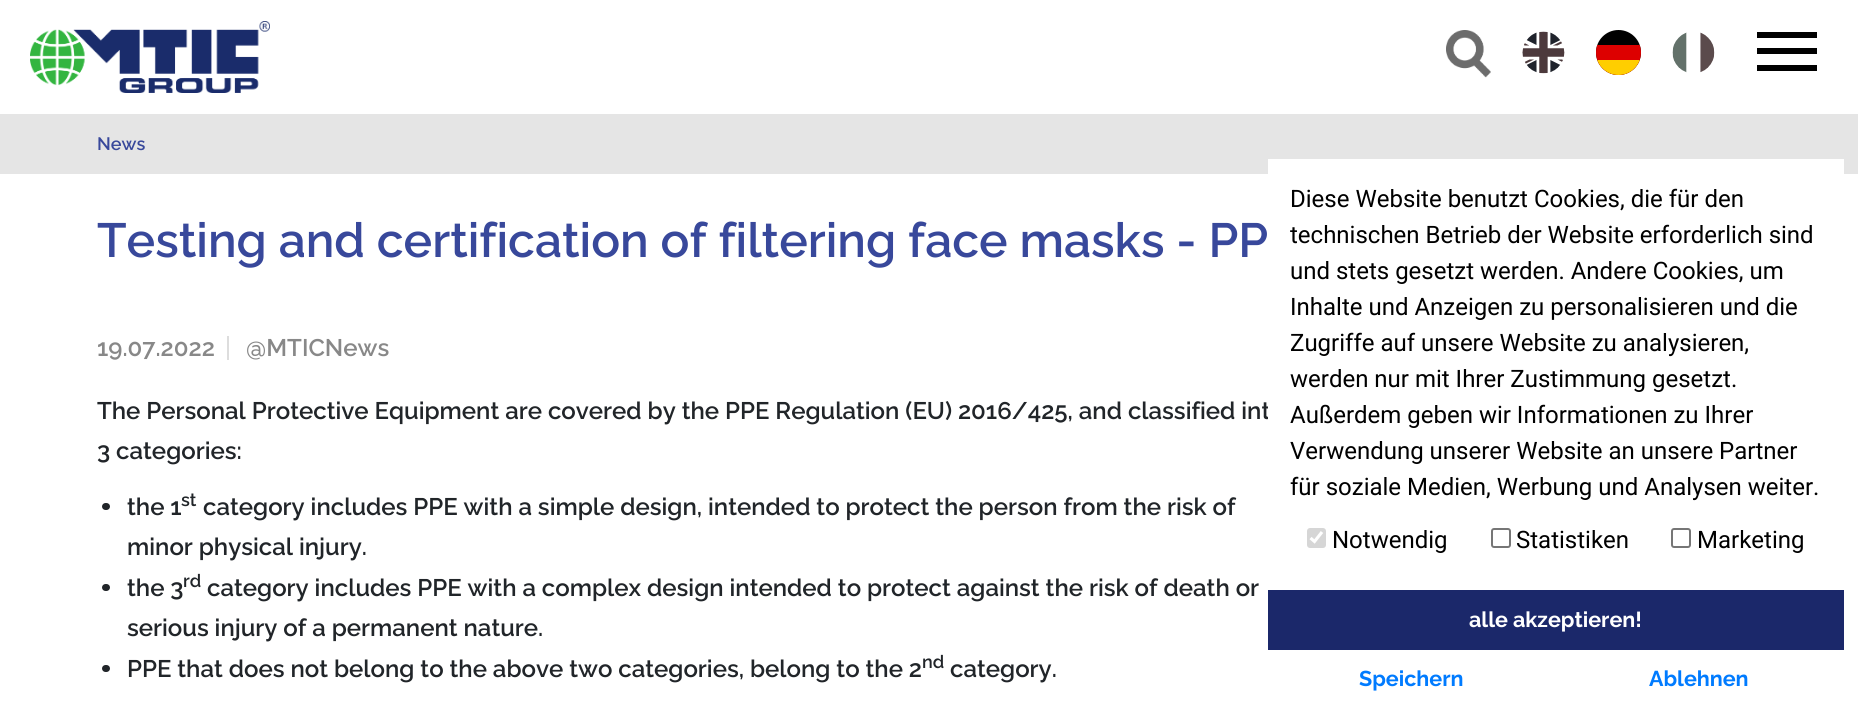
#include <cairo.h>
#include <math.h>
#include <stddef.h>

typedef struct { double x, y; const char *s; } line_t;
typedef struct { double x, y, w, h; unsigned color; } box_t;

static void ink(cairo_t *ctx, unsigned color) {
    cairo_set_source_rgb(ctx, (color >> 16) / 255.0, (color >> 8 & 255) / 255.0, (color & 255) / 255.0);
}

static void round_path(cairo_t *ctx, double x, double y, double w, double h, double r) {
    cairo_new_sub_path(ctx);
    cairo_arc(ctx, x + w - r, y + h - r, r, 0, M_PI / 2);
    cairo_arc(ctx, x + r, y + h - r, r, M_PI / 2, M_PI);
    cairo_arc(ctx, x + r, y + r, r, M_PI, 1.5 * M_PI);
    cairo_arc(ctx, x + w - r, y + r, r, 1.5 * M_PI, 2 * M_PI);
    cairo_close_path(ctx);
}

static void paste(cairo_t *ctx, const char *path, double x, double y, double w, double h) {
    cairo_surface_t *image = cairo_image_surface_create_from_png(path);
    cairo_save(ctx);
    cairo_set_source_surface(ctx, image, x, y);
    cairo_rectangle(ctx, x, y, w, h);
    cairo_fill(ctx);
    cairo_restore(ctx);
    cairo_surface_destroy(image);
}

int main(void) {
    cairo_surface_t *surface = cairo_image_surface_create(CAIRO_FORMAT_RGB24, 1858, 722);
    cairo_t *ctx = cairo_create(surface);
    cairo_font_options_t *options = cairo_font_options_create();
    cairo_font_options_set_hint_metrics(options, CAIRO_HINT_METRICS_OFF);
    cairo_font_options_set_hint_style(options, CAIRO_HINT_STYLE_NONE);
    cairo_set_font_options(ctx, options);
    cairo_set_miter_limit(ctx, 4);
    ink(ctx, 0xFFFFFF);
    cairo_paint(ctx);
    paste(ctx, "media/1.png", 30, 21, 240, 72);
    paste(ctx, "media/2.png", 1446, 30, 45, 48);
    paste(ctx, "media/3.png", 1522, 31, 43, 43);
    ink(ctx, 0x000000);
    cairo_arc(ctx, 1618.5, 52.5, 22.5, 0, 2 * M_PI);
    cairo_fill(ctx);
    cairo_save(ctx);
    round_path(ctx, 1596, 30, 45, 45, 22.5);
    cairo_clip(ctx);
    ink(ctx, 0xDD0000);
    cairo_new_path(ctx);
    cairo_move_to(ctx, 1596, 45);
    cairo_line_to(ctx, 1641, 45);
    cairo_line_to(ctx, 1641, 52.5);
    cairo_curve_to(ctx, 1641, 65, 1631, 75, 1618.5, 75);
    cairo_curve_to(ctx, 1606, 75, 1596, 65, 1596, 52.5);
    cairo_close_path(ctx);
    cairo_fill(ctx);
    ink(ctx, 0xFFCE00);
    cairo_rectangle(ctx, 1597, 60, 43, 15);
    cairo_fill(ctx);
    cairo_restore(ctx);
    paste(ctx, "media/4.png", 1672, 32, 43, 41);
    {
        static const box_t items[] = {
            {1757, 48, 60, 6, 0x000000},
            {1757, 32, 60, 6, 0x000000},
            {1757, 65, 60, 6, 0x000000},
            {0, 114, 1858, 60, 0xE5E5E5},
        };
        for (size_t i = 0; i < sizeof items / sizeof *items; i++) {
            ink(ctx, items[i].color);
            cairo_rectangle(ctx, items[i].x, items[i].y, items[i].w, items[i].h);
            cairo_fill(ctx);
        }
    }
    cairo_select_font_face(ctx, "Raleway SemiBold", CAIRO_FONT_SLANT_NORMAL, CAIRO_FONT_WEIGHT_NORMAL);
    cairo_set_font_size(ctx, 18);
    ink(ctx, 0x38489B);
    cairo_move_to(ctx, 97, 150);
    cairo_show_text(ctx, "News");
    cairo_set_font_size(ctx, 48);
    cairo_move_to(ctx, 97, 257);
    cairo_show_text(ctx, "Testing and certification of filtering face masks - PP");
    ink(ctx, 0xDDDDDD);
    cairo_rectangle(ctx, 227, 336, 2, 24);
    cairo_fill(ctx);
    cairo_set_font_size(ctx, 24);
    ink(ctx, 0x888888);
    cairo_move_to(ctx, 97, 356);
    cairo_show_text(ctx, "19.07.2022");
    cairo_move_to(ctx, 246, 356);
    cairo_show_text(ctx, "@MTICNews");
    ink(ctx, 0x212529);
    cairo_move_to(ctx, 97, 419);
    cairo_show_text(ctx, "The Personal Protective Equipment are covered by the PPE Regulation (EU) 2016/425, and classified int");
    cairo_move_to(ctx, 97, 459);
    cairo_show_text(ctx, "3 categories:");
    round_path(ctx, 102, 503, 8, 7, 3.5);
    cairo_fill(ctx);
    cairo_move_to(ctx, 127, 515);
    cairo_show_text(ctx, "the 1");
    cairo_set_font_size(ctx, 18);
    cairo_move_to(ctx, 181, 506);
    cairo_show_text(ctx, "st");
    cairo_set_font_size(ctx, 24);
    cairo_move_to(ctx, 203, 515);
    cairo_show_text(ctx, "category includes PPE with a simple design, intended to protect the person from the risk of");
    cairo_move_to(ctx, 127, 555);
    cairo_show_text(ctx, "minor physical injury.");
    round_path(ctx, 102, 584, 8, 7, 3.5);
    cairo_fill(ctx);
    cairo_move_to(ctx, 127, 596);
    cairo_show_text(ctx, "the 3");
    cairo_set_font_size(ctx, 18);
    cairo_move_to(ctx, 183, 587);
    cairo_show_text(ctx, "rd");
    cairo_set_font_size(ctx, 24);
    cairo_move_to(ctx, 207, 596);
    cairo_show_text(ctx, "category includes PPE with a complex design intended to protect against the risk of death or");
    cairo_move_to(ctx, 127, 636);
    cairo_show_text(ctx, "serious injury of a permanent nature.");
    round_path(ctx, 102, 665, 8, 7, 3.5);
    cairo_fill(ctx);
    cairo_move_to(ctx, 127, 677);
    cairo_show_text(ctx, "PPE that does not belong to the above two categories, belong to the 2");
    cairo_set_font_size(ctx, 18);
    cairo_move_to(ctx, 922, 668);
    cairo_show_text(ctx, "nd");
    cairo_set_font_size(ctx, 24);
    cairo_move_to(ctx, 950, 677);
    cairo_show_text(ctx, "category.");
    ink(ctx, 0xFFFFFF);
    cairo_rectangle(ctx, 1268, 159, 576, 260);
    cairo_fill(ctx);
    cairo_select_font_face(ctx, "Roboto", CAIRO_FONT_SLANT_NORMAL, CAIRO_FONT_WEIGHT_NORMAL);
    ink(ctx, 0x000000);
    {
        static const line_t items[] = {
            {1290, 207, "Diese Website benutzt Cookies, die für den"},
            {1290, 243, "technischen Betrieb der Website erforderlich sind"},
            {1290, 279, "und stets gesetzt werden. Andere Cookies, um"},
            {1290, 315, "Inhalte und Anzeigen zu personalisieren und die"},
            {1290, 351, "Zugriffe auf unsere Website zu analysieren,"},
            {1290, 387, "werden nur mit Ihrer Zustimmung gesetzt."},
            {1290, 423, "Außerdem geben wir Informationen zu Ihrer"},
            {1290, 459, "Verwendung unserer Website an unsere Partner"},
            {1290, 495, "für soziale Medien, Werbung und Analysen weiter."},
        };
        for (size_t i = 0; i < sizeof items / sizeof *items; i++) {
            cairo_move_to(ctx, items[i].x, items[i].y);
            cairo_show_text(ctx, items[i].s);
        }
    }
    ink(ctx, 0xD6D6D6);
    round_path(ctx, 1307, 528, 19, 20, 3);
    cairo_fill(ctx);
    cairo_new_path(ctx);
    cairo_move_to(ctx, 1310.5, 538);
    cairo_line_to(ctx, 1314.5, 541.5);
    cairo_line_to(ctx, 1322, 532);
    ink(ctx, 0xFFFFFF);
    cairo_set_line_width(ctx, 3.1);
    cairo_stroke(ctx);
    ink(ctx, 0x000000);
    cairo_move_to(ctx, 1332, 548);
    cairo_show_text(ctx, "Notwendig");
    round_path(ctx, 1492, 529, 18, 18, 2);
    ink(ctx, 0x767676);
    cairo_set_line_width(ctx, 2);
    cairo_stroke(ctx);
    ink(ctx, 0x000000);
    cairo_move_to(ctx, 1516, 548);
    cairo_show_text(ctx, "Statistiken");
    round_path(ctx, 1672, 529, 18, 18, 2);
    ink(ctx, 0x767676);
    cairo_stroke(ctx);
    ink(ctx, 0x000000);
    cairo_move_to(ctx, 1697, 548);
    cairo_show_text(ctx, "Marketing");
    ink(ctx, 0x1B286A);
    cairo_rectangle(ctx, 1268, 590, 576, 60);
    cairo_fill(ctx);
    cairo_select_font_face(ctx, "Raleway", CAIRO_FONT_SLANT_NORMAL, CAIRO_FONT_WEIGHT_BOLD);
    cairo_set_font_size(ctx, 21.5);
    ink(ctx, 0xFFFFFF);
    cairo_move_to(ctx, 1469, 627);
    cairo_show_text(ctx, "alle akzeptieren!");
    ink(ctx, 0x007BFF);
    cairo_move_to(ctx, 1359, 686);
    cairo_show_text(ctx, "Speichern");
    cairo_move_to(ctx, 1649, 686);
    cairo_show_text(ctx, "Ablehnen");
    cairo_surface_write_to_png(surface, "image.png");
    cairo_font_options_destroy(options);
    cairo_destroy(ctx);
    cairo_surface_destroy(surface);
    return 0;
}
